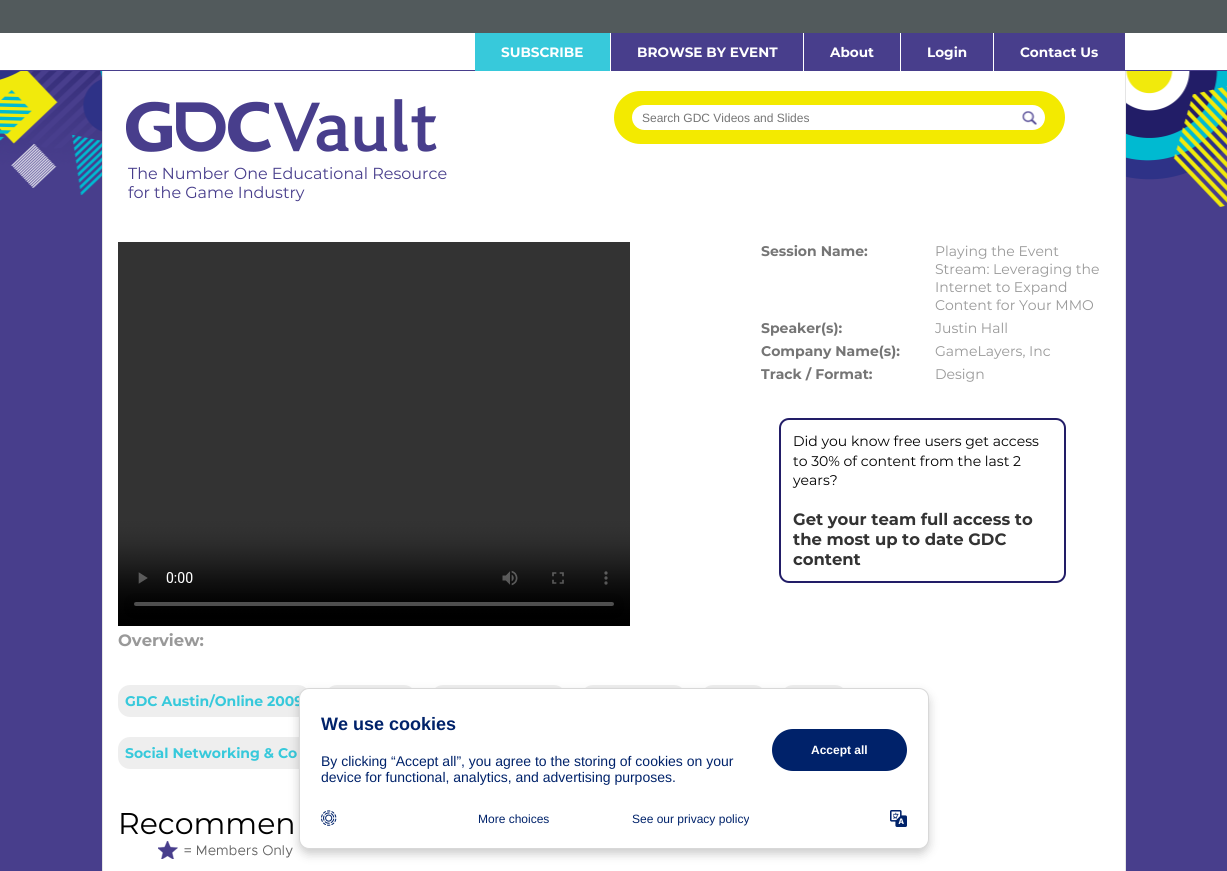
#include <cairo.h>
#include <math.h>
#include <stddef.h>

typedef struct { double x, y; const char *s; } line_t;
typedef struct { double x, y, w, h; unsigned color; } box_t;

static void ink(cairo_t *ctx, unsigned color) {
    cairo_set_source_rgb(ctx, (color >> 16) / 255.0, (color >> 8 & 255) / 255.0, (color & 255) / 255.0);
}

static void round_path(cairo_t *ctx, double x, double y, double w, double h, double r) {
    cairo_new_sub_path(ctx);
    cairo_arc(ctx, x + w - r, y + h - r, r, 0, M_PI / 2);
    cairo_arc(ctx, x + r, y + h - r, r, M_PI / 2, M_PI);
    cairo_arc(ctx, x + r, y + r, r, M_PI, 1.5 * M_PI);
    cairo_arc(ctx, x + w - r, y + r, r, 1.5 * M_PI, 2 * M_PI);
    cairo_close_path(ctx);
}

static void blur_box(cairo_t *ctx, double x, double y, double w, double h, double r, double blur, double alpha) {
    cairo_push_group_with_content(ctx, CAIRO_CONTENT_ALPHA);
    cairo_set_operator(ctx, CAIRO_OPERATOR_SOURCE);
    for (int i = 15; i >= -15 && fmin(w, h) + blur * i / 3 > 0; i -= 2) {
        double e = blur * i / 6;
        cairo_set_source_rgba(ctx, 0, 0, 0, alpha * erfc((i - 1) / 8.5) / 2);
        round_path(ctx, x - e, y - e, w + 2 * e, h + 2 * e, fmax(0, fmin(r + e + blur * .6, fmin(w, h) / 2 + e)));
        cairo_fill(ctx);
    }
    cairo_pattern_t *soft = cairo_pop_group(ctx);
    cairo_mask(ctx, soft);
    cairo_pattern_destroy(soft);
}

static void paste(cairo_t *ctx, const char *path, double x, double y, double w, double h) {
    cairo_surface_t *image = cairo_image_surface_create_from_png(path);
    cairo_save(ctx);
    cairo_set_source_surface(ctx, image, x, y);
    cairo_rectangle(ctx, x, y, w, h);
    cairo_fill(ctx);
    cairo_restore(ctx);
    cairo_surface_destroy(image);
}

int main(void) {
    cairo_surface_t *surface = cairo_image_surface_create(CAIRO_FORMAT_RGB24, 1227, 871);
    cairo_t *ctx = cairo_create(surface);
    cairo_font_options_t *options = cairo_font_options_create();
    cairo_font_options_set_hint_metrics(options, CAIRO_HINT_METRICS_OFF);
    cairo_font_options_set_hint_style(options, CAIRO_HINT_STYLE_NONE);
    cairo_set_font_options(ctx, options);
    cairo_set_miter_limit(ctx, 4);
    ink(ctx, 0x483E8C);
    cairo_paint(ctx);
    paste(ctx, "media/1.png", 0, 71, 1227, 136);
    {
        static const box_t items[] = {
            {0, 0, 1227, 33, 0x525A5C},
            {0, 33, 1227, 37, 0xFFFFFF},
            {610, 70, 1, 1, 0xFFFFFF},
            {475, 33, 135, 38, 0x37C9DB},
        };
        for (size_t i = 0; i < sizeof items / sizeof *items; i++) {
            ink(ctx, items[i].color);
            cairo_rectangle(ctx, items[i].x, items[i].y, items[i].w, items[i].h);
            cairo_fill(ctx);
        }
    }
    cairo_select_font_face(ctx, "Montserrat", CAIRO_FONT_SLANT_NORMAL, CAIRO_FONT_WEIGHT_BOLD);
    cairo_set_font_size(ctx, 13.6);
    ink(ctx, 0xFFFFFF);
    cairo_move_to(ctx, 501, 57);
    cairo_show_text(ctx, "SUBSCRIBE");
    ink(ctx, 0x483E8C);
    cairo_rectangle(ctx, 611, 33, 192, 37);
    cairo_fill(ctx);
    ink(ctx, 0xFFFFFF);
    cairo_rectangle(ctx, 803, 70, 1, 1);
    cairo_fill(ctx);
    cairo_move_to(ctx, 637, 57);
    cairo_show_text(ctx, "BROWSE BY EVENT");
    ink(ctx, 0x483E8C);
    cairo_rectangle(ctx, 804, 33, 96, 37);
    cairo_fill(ctx);
    ink(ctx, 0xFFFFFF);
    cairo_rectangle(ctx, 900, 70, 1, 1);
    cairo_fill(ctx);
    cairo_move_to(ctx, 830, 57);
    cairo_show_text(ctx, "About");
    ink(ctx, 0x483E8C);
    cairo_rectangle(ctx, 901, 33, 92, 37);
    cairo_fill(ctx);
    ink(ctx, 0xFFFFFF);
    cairo_rectangle(ctx, 993, 70, 1, 1);
    cairo_fill(ctx);
    cairo_move_to(ctx, 927, 57);
    cairo_show_text(ctx, "Login");
    ink(ctx, 0x483E8C);
    cairo_rectangle(ctx, 994, 33, 131, 37);
    cairo_fill(ctx);
    ink(ctx, 0xFFFFFF);
    cairo_move_to(ctx, 1020, 57);
    cairo_show_text(ctx, "Contact Us");
    {
        static const box_t items[] = {
            {103, 71, 1022, 800, 0xFFFFFF},
            {1125, 71, 1, 800, 0xE5E5E5},
            {102, 71, 1, 800, 0xE5E5E5},
        };
        for (size_t i = 0; i < sizeof items / sizeof *items; i++) {
            ink(ctx, items[i].color);
            cairo_rectangle(ctx, items[i].x, items[i].y, items[i].w, items[i].h);
            cairo_fill(ctx);
        }
    }
    ink(ctx, 0xF3EA00);
    round_path(ctx, 614, 91, 451, 53, 26.5);
    cairo_fill(ctx);
    ink(ctx, 0xFFFFFF);
    round_path(ctx, 632, 105, 413, 25, 12.5);
    cairo_fill(ctx);
    cairo_select_font_face(ctx, "Liberation Sans", CAIRO_FONT_SLANT_NORMAL, CAIRO_FONT_WEIGHT_NORMAL);
    cairo_set_font_size(ctx, 12);
    ink(ctx, 0x757575);
    cairo_move_to(ctx, 642, 122);
    cairo_show_text(ctx, "Search GDC Videos and Slides");
    paste(ctx, "media/2.png", 1022, 111, 15, 14);
    paste(ctx, "media/3.png", 126, 99, 311, 53);
    cairo_select_font_face(ctx, "Montserrat", CAIRO_FONT_SLANT_NORMAL, CAIRO_FONT_WEIGHT_NORMAL);
    cairo_set_font_size(ctx, 16);
    ink(ctx, 0x483E8C);
    cairo_move_to(ctx, 128, 179);
    cairo_show_text(ctx, "The Number One Educational Resource");
    cairo_move_to(ctx, 128, 198);
    cairo_show_text(ctx, "for the Game Industry");
    cairo_select_font_face(ctx, "Montserrat", CAIRO_FONT_SLANT_NORMAL, CAIRO_FONT_WEIGHT_BOLD);
    cairo_set_font_size(ctx, 14);
    ink(ctx, 0x757575);
    cairo_move_to(ctx, 761, 256);
    cairo_show_text(ctx, "Session Name:");
    cairo_select_font_face(ctx, "Montserrat", CAIRO_FONT_SLANT_NORMAL, CAIRO_FONT_WEIGHT_NORMAL);
    ink(ctx, 0x999999);
    {
        static const line_t items[] = {
            {935, 256, "Playing the Event"},
            {935, 274, "Stream: Leveraging the"},
            {935, 292, "Internet to Expand"},
            {935, 310, "Content for Your MMO"},
        };
        for (size_t i = 0; i < sizeof items / sizeof *items; i++) {
            cairo_move_to(ctx, items[i].x, items[i].y);
            cairo_show_text(ctx, items[i].s);
        }
    }
    cairo_select_font_face(ctx, "Montserrat", CAIRO_FONT_SLANT_NORMAL, CAIRO_FONT_WEIGHT_BOLD);
    ink(ctx, 0x757575);
    cairo_move_to(ctx, 761, 333);
    cairo_show_text(ctx, "Speaker(s):");
    cairo_select_font_face(ctx, "Montserrat", CAIRO_FONT_SLANT_NORMAL, CAIRO_FONT_WEIGHT_NORMAL);
    ink(ctx, 0x999999);
    cairo_move_to(ctx, 935, 333);
    cairo_show_text(ctx, "Justin Hall");
    cairo_select_font_face(ctx, "Montserrat", CAIRO_FONT_SLANT_NORMAL, CAIRO_FONT_WEIGHT_BOLD);
    ink(ctx, 0x757575);
    cairo_move_to(ctx, 761, 356);
    cairo_show_text(ctx, "Company Name(s):");
    cairo_select_font_face(ctx, "Montserrat", CAIRO_FONT_SLANT_NORMAL, CAIRO_FONT_WEIGHT_NORMAL);
    ink(ctx, 0x999999);
    cairo_move_to(ctx, 935, 356);
    cairo_show_text(ctx, "GameLayers, Inc");
    cairo_select_font_face(ctx, "Montserrat", CAIRO_FONT_SLANT_NORMAL, CAIRO_FONT_WEIGHT_BOLD);
    ink(ctx, 0x757575);
    cairo_move_to(ctx, 761, 379);
    cairo_show_text(ctx, "Track / Format:");
    cairo_select_font_face(ctx, "Montserrat", CAIRO_FONT_SLANT_NORMAL, CAIRO_FONT_WEIGHT_NORMAL);
    ink(ctx, 0x999999);
    cairo_move_to(ctx, 935, 379);
    cairo_show_text(ctx, "Design");
    round_path(ctx, 780, 419, 285, 163, 9);
    ink(ctx, 0x221D67);
    cairo_stroke(ctx);
    ink(ctx, 0x000000);
    {
        static const line_t items[] = {
            {793, 446, "Did you know free users get access"},
            {793, 466, "to 30% of content from the last 2"},
            {793, 485, "years?"},
        };
        for (size_t i = 0; i < sizeof items / sizeof *items; i++) {
            cairo_move_to(ctx, items[i].x, items[i].y);
            cairo_show_text(ctx, items[i].s);
        }
    }
    cairo_select_font_face(ctx, "Montserrat", CAIRO_FONT_SLANT_NORMAL, CAIRO_FONT_WEIGHT_BOLD);
    cairo_set_font_size(ctx, 16.4);
    ink(ctx, 0x333333);
    {
        static const line_t items[] = {
            {793, 525, "Get your team full access to"},
            {793, 545, "the most up to date GDC"},
            {793, 565, "content"},
        };
        for (size_t i = 0; i < sizeof items / sizeof *items; i++) {
            cairo_move_to(ctx, items[i].x, items[i].y);
            cairo_show_text(ctx, items[i].s);
        }
    }
    paste(ctx, "media/4.png", 118, 242, 512, 384);
    ink(ctx, 0x999999);
    cairo_move_to(ctx, 118, 646);
    cairo_show_text(ctx, "Overview:");
    ink(ctx, 0xEEEEEE);
    round_path(ctx, 118, 685, 192, 32, 12);
    cairo_fill(ctx);
    cairo_set_font_size(ctx, 14);
    ink(ctx, 0x37C9DB);
    cairo_move_to(ctx, 125, 706);
    cairo_show_text(ctx, "GDC Austin/Online 2009");
    ink(ctx, 0xEEEEEE);
    round_path(ctx, 325, 685, 91, 32, 12);
    cairo_fill(ctx);
    round_path(ctx, 431, 685, 135, 32, 12);
    cairo_fill(ctx);
    round_path(ctx, 581, 685, 105, 32, 12);
    cairo_fill(ctx);
    round_path(ctx, 701, 685, 65, 32, 12);
    cairo_fill(ctx);
    round_path(ctx, 781, 685, 66, 32, 12);
    cairo_fill(ctx);
    round_path(ctx, 118, 737, 253, 32, 12);
    cairo_fill(ctx);
    ink(ctx, 0x37C9DB);
    cairo_move_to(ctx, 125, 758);
    cairo_show_text(ctx, "Social Networking & Co");
    cairo_select_font_face(ctx, "Montserrat", CAIRO_FONT_SLANT_NORMAL, CAIRO_FONT_WEIGHT_NORMAL);
    cairo_set_font_size(ctx, 30);
    ink(ctx, 0x000000);
    cairo_move_to(ctx, 118, 834);
    cairo_show_text(ctx, "Recommen");
    paste(ctx, "media/5.png", 158, 841, 135, 18);
    ink(ctx, 0x000000);
    blur_box(ctx, 299, 693, 630, 161, 10, 5, 0.2);
    ink(ctx, 0xFFFFFF);
    round_path(ctx, 299.5, 688.5, 629, 160, 9.5);
    cairo_fill_preserve(ctx);
    ink(ctx, 0xD8D8D8);
    cairo_set_line_width(ctx, 1);
    cairo_stroke(ctx);
    cairo_select_font_face(ctx, "Liberation Sans", CAIRO_FONT_SLANT_NORMAL, CAIRO_FONT_WEIGHT_BOLD);
    cairo_set_font_size(ctx, 18);
    ink(ctx, 0x00226A);
    cairo_move_to(ctx, 321, 730);
    cairo_show_text(ctx, "We use cookies");
    cairo_select_font_face(ctx, "Liberation Sans", CAIRO_FONT_SLANT_NORMAL, CAIRO_FONT_WEIGHT_NORMAL);
    cairo_set_font_size(ctx, 14);
    cairo_move_to(ctx, 321, 766);
    cairo_show_text(ctx, "By clicking “Accept all”, you agree to the storing of cookies on your");
    cairo_move_to(ctx, 321, 782);
    cairo_show_text(ctx, "device for functional, analytics, and advertising purposes.");
    round_path(ctx, 772, 729, 135, 42, 21);
    cairo_fill(ctx);
    cairo_select_font_face(ctx, "Liberation Sans", CAIRO_FONT_SLANT_NORMAL, CAIRO_FONT_WEIGHT_BOLD);
    cairo_set_font_size(ctx, 12);
    ink(ctx, 0xFFFFFF);
    cairo_move_to(ctx, 811, 754);
    cairo_show_text(ctx, "Accept all");
    paste(ctx, "media/6.png", 321, 810, 16, 16);
    cairo_select_font_face(ctx, "Liberation Sans", CAIRO_FONT_SLANT_NORMAL, CAIRO_FONT_WEIGHT_NORMAL);
    ink(ctx, 0x00226A);
    cairo_move_to(ctx, 478, 823);
    cairo_show_text(ctx, "More choices");
    cairo_move_to(ctx, 632, 823);
    cairo_show_text(ctx, "See our privacy policy");
    paste(ctx, "media/7.png", 890, 810, 17, 17);
    cairo_surface_write_to_png(surface, "image.png");
    cairo_font_options_destroy(options);
    cairo_destroy(ctx);
    cairo_surface_destroy(surface);
    return 0;
}
